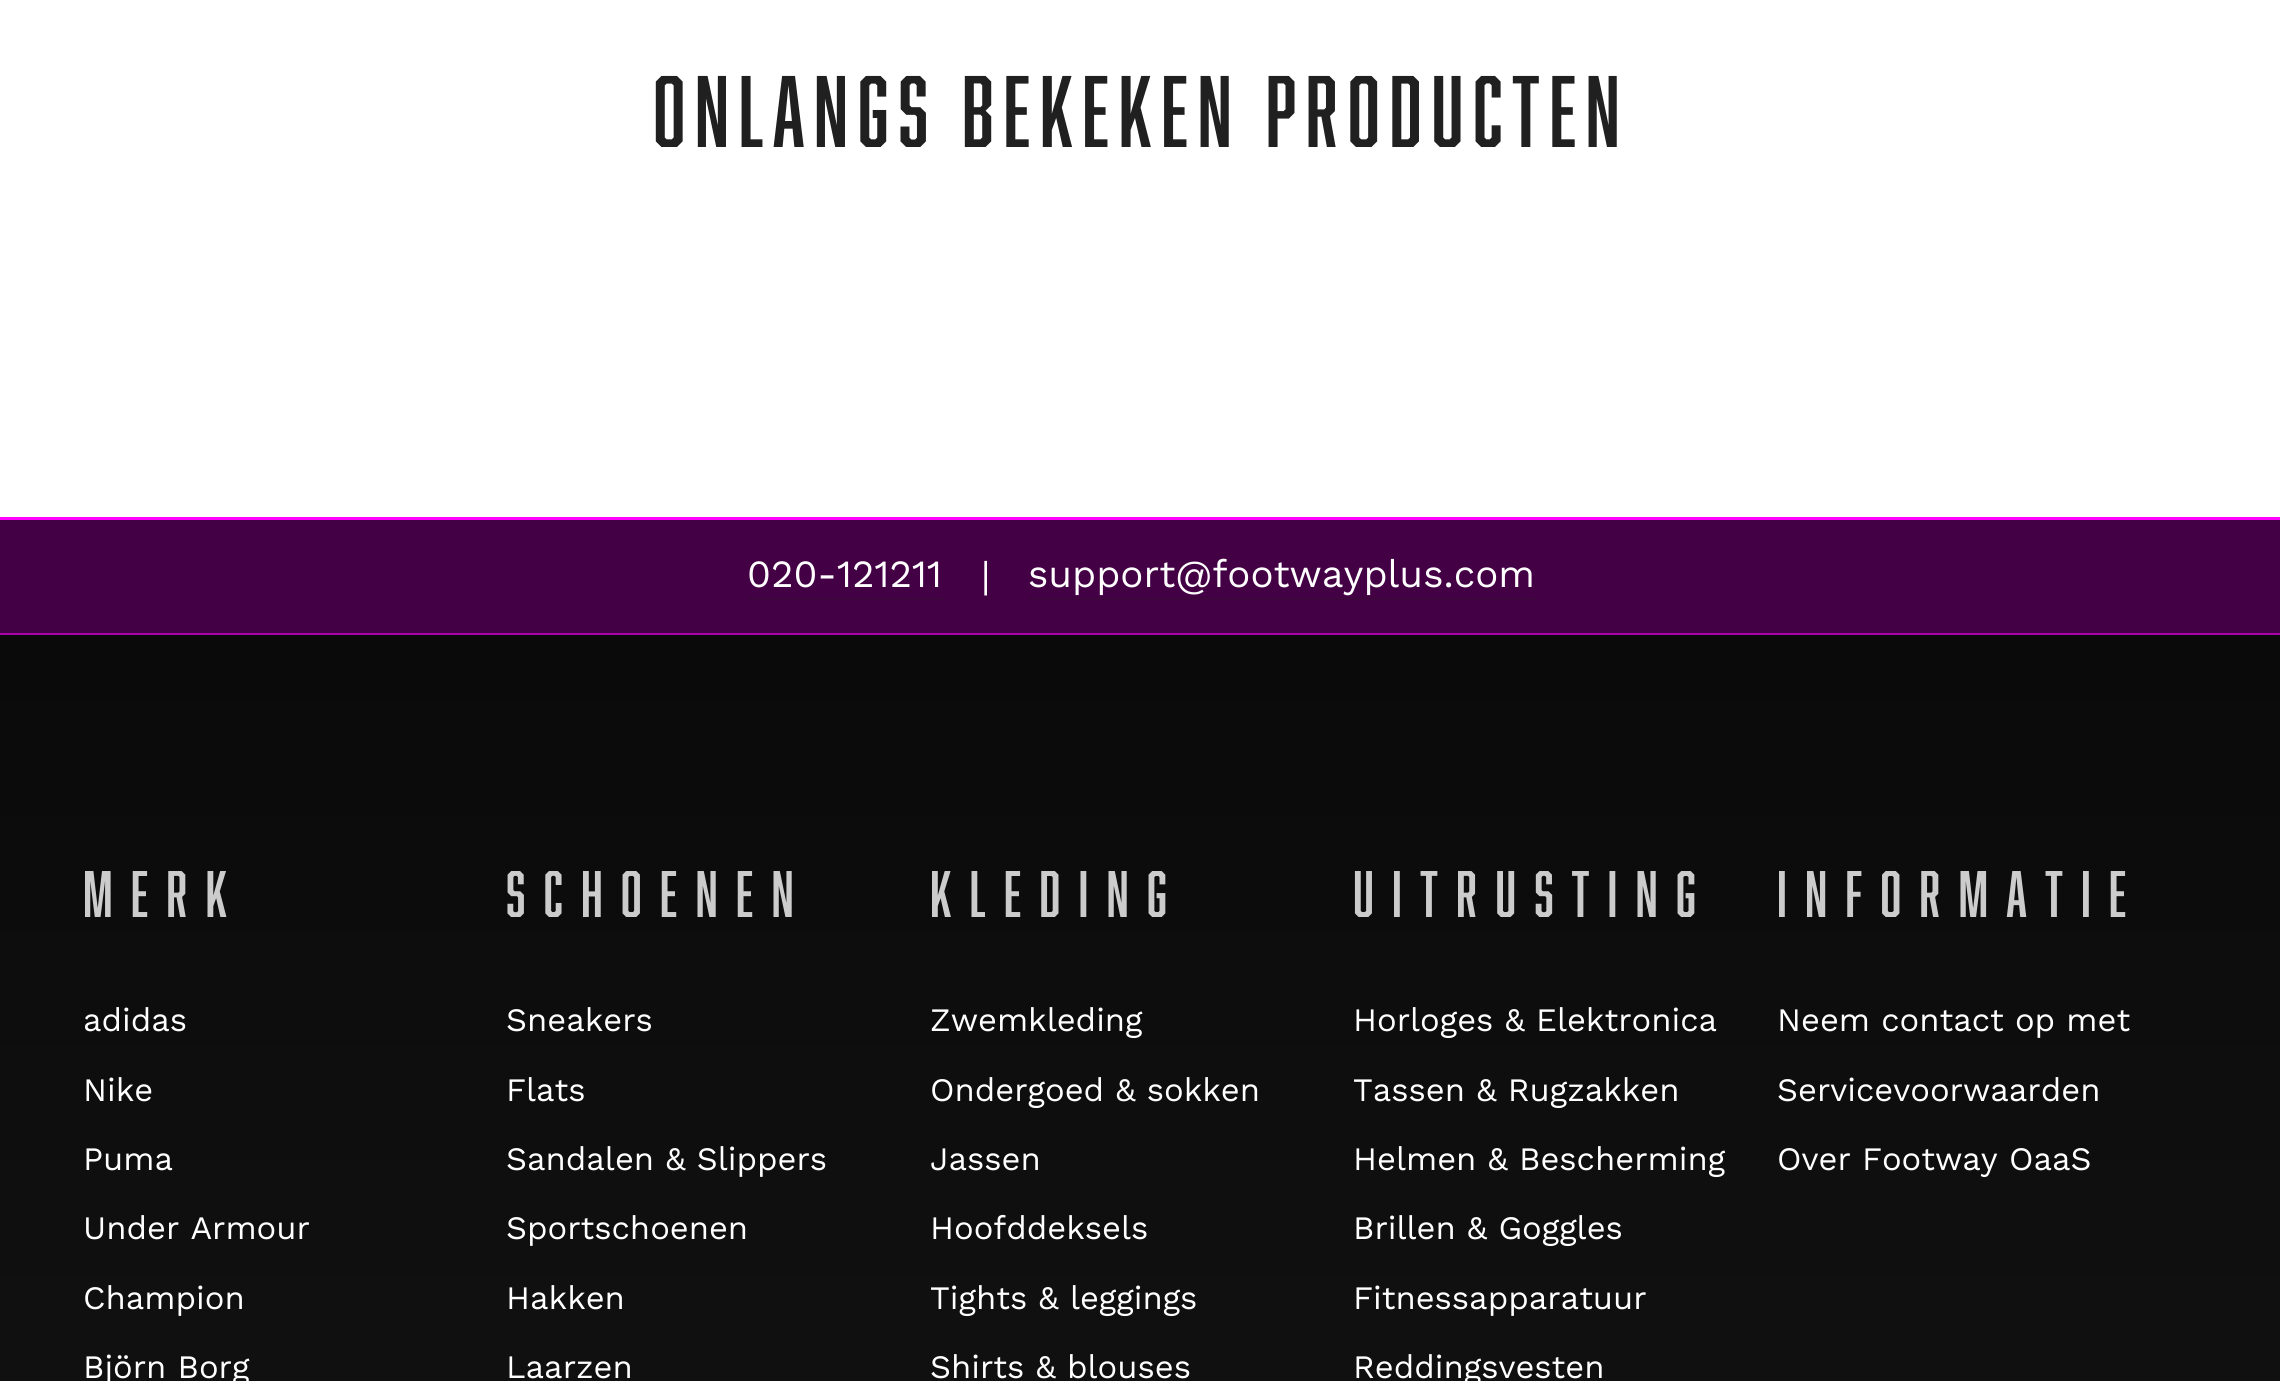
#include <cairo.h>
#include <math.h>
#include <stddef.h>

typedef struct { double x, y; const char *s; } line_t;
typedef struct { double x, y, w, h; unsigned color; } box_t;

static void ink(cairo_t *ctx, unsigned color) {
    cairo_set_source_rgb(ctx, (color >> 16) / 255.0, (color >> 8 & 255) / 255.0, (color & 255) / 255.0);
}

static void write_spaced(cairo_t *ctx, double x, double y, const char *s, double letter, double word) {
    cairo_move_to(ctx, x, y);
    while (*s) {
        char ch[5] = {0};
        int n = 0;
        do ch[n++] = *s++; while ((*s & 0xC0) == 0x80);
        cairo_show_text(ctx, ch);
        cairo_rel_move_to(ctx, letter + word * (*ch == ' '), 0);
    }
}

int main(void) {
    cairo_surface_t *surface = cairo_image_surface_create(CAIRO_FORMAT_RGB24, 2280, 1381);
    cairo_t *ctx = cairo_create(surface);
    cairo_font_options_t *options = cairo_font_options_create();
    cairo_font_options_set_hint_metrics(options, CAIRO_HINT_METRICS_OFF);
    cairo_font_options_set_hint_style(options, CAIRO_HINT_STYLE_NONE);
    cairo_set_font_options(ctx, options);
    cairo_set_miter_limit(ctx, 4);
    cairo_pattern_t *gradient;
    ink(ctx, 0xFFFFFF);
    cairo_paint(ctx);
    cairo_select_font_face(ctx, "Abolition", CAIRO_FONT_SLANT_NORMAL, CAIRO_FONT_WEIGHT_NORMAL);
    cairo_set_font_size(ctx, 93.5);
    ink(ctx, 0x202020);
    write_spaced(ctx, 653, 147, "ONLANGS BEKEKEN PRODUCTEN", 9.35, 0);
    {
        static const box_t items[] = {
            {0, 517, 2280, 3, 0xFF00FF},
            {0, 633, 2280, 2, 0xAA00AA},
            {0, 520, 2280, 113, 0x440044},
            {748, 597, 195, 3, 0x3F053F},
        };
        for (size_t i = 0; i < sizeof items / sizeof *items; i++) {
            ink(ctx, items[i].color);
            cairo_rectangle(ctx, items[i].x, items[i].y, items[i].w, items[i].h);
            cairo_fill(ctx);
        }
    }
    cairo_select_font_face(ctx, "Work Sans", CAIRO_FONT_SLANT_NORMAL, CAIRO_FONT_WEIGHT_NORMAL);
    cairo_set_font_size(ctx, 38.5);
    ink(ctx, 0xFFFFFF);
    cairo_move_to(ctx, 747, 587);
    cairo_show_text(ctx, "020-121211");
    cairo_move_to(ctx, 981, 589);
    cairo_show_text(ctx, "|");
    ink(ctx, 0x3F053F);
    cairo_rectangle(ctx, 1029, 597, 506, 3);
    cairo_fill(ctx);
    ink(ctx, 0xFFFFFF);
    cairo_move_to(ctx, 1028, 587);
    cairo_show_text(ctx, "support@footwayplus.com");
    gradient = cairo_pattern_create_linear(1141, 635, 1141, 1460);
    cairo_pattern_add_color_stop_rgba(gradient, 0, 0.039, 0.039, 0.039, 1);
    cairo_pattern_add_color_stop_rgba(gradient, 1, 0.067, 0.067, 0.067, 1);
    cairo_set_source(ctx, gradient);
    cairo_pattern_destroy(gradient);
    cairo_rectangle(ctx, 0, 635, 2280, 746);
    cairo_fill(ctx);
    cairo_select_font_face(ctx, "Abolition", CAIRO_FONT_SLANT_NORMAL, CAIRO_FONT_WEIGHT_NORMAL);
    cairo_set_font_size(ctx, 60.5);
    ink(ctx, 0xCCCCCC);
    write_spaced(ctx, 83, 917, "MERK", 18.1, 0);
    cairo_select_font_face(ctx, "Work Sans", CAIRO_FONT_SLANT_NORMAL, CAIRO_FONT_WEIGHT_NORMAL);
    cairo_set_font_size(ctx, 32.75);
    ink(ctx, 0xFFFFFF);
    {
        static const line_t items[] = {
            {83, 1031, "adidas"},
            {83, 1101, "Nike"},
            {83, 1170, "Puma"},
            {83, 1239, "Under Armour"},
            {83, 1309, "Champion"},
            {83, 1378, "Björn Borg"},
        };
        for (size_t i = 0; i < sizeof items / sizeof *items; i++) {
            cairo_move_to(ctx, items[i].x, items[i].y);
            cairo_show_text(ctx, items[i].s);
        }
    }
    cairo_select_font_face(ctx, "Abolition", CAIRO_FONT_SLANT_NORMAL, CAIRO_FONT_WEIGHT_NORMAL);
    cairo_set_font_size(ctx, 60.5);
    ink(ctx, 0xCCCCCC);
    write_spaced(ctx, 506, 917, "SCHOENEN", 18.1, 0);
    cairo_select_font_face(ctx, "Work Sans", CAIRO_FONT_SLANT_NORMAL, CAIRO_FONT_WEIGHT_NORMAL);
    cairo_set_font_size(ctx, 32.75);
    ink(ctx, 0xFFFFFF);
    {
        static const line_t items[] = {
            {506, 1031, "Sneakers"},
            {506, 1101, "Flats"},
            {506, 1170, "Sandalen & Slippers"},
            {506, 1239, "Sportschoenen"},
            {506, 1309, "Hakken"},
            {506, 1378, "Laarzen"},
        };
        for (size_t i = 0; i < sizeof items / sizeof *items; i++) {
            cairo_move_to(ctx, items[i].x, items[i].y);
            cairo_show_text(ctx, items[i].s);
        }
    }
    cairo_select_font_face(ctx, "Abolition", CAIRO_FONT_SLANT_NORMAL, CAIRO_FONT_WEIGHT_NORMAL);
    cairo_set_font_size(ctx, 60.5);
    ink(ctx, 0xCCCCCC);
    write_spaced(ctx, 930, 917, "KLEDING", 18.1, 0);
    cairo_select_font_face(ctx, "Work Sans", CAIRO_FONT_SLANT_NORMAL, CAIRO_FONT_WEIGHT_NORMAL);
    cairo_set_font_size(ctx, 32.75);
    ink(ctx, 0xFFFFFF);
    {
        static const line_t items[] = {
            {930, 1031, "Zwemkleding"},
            {930, 1101, "Ondergoed & sokken"},
            {930, 1170, "Jassen"},
            {930, 1239, "Hoofddeksels"},
            {930, 1309, "Tights & leggings"},
            {930, 1378, "Shirts & blouses"},
        };
        for (size_t i = 0; i < sizeof items / sizeof *items; i++) {
            cairo_move_to(ctx, items[i].x, items[i].y);
            cairo_show_text(ctx, items[i].s);
        }
    }
    cairo_select_font_face(ctx, "Abolition", CAIRO_FONT_SLANT_NORMAL, CAIRO_FONT_WEIGHT_NORMAL);
    cairo_set_font_size(ctx, 60.5);
    ink(ctx, 0xCCCCCC);
    write_spaced(ctx, 1353, 917, "UITRUSTING", 18.1, 0);
    cairo_select_font_face(ctx, "Work Sans", CAIRO_FONT_SLANT_NORMAL, CAIRO_FONT_WEIGHT_NORMAL);
    cairo_set_font_size(ctx, 32.75);
    ink(ctx, 0xFFFFFF);
    {
        static const line_t items[] = {
            {1353, 1031, "Horloges & Elektronica"},
            {1353, 1101, "Tassen & Rugzakken"},
            {1353, 1170, "Helmen & Bescherming"},
            {1353, 1239, "Brillen & Goggles"},
            {1353, 1309, "Fitnessapparatuur"},
            {1353, 1378, "Reddingsvesten"},
        };
        for (size_t i = 0; i < sizeof items / sizeof *items; i++) {
            cairo_move_to(ctx, items[i].x, items[i].y);
            cairo_show_text(ctx, items[i].s);
        }
    }
    cairo_select_font_face(ctx, "Abolition", CAIRO_FONT_SLANT_NORMAL, CAIRO_FONT_WEIGHT_NORMAL);
    cairo_set_font_size(ctx, 60.5);
    ink(ctx, 0xCCCCCC);
    write_spaced(ctx, 1777, 917, "INFORMATIE", 18.1, 0);
    cairo_select_font_face(ctx, "Work Sans", CAIRO_FONT_SLANT_NORMAL, CAIRO_FONT_WEIGHT_NORMAL);
    cairo_set_font_size(ctx, 32.75);
    ink(ctx, 0xFFFFFF);
    {
        static const line_t items[] = {
            {1777, 1031, "Neem contact op met"},
            {1777, 1101, "Servicevoorwaarden"},
            {1777, 1170, "Over Footway OaaS"},
        };
        for (size_t i = 0; i < sizeof items / sizeof *items; i++) {
            cairo_move_to(ctx, items[i].x, items[i].y);
            cairo_show_text(ctx, items[i].s);
        }
    }
    cairo_surface_write_to_png(surface, "image.png");
    cairo_font_options_destroy(options);
    cairo_destroy(ctx);
    cairo_surface_destroy(surface);
    return 0;
}
